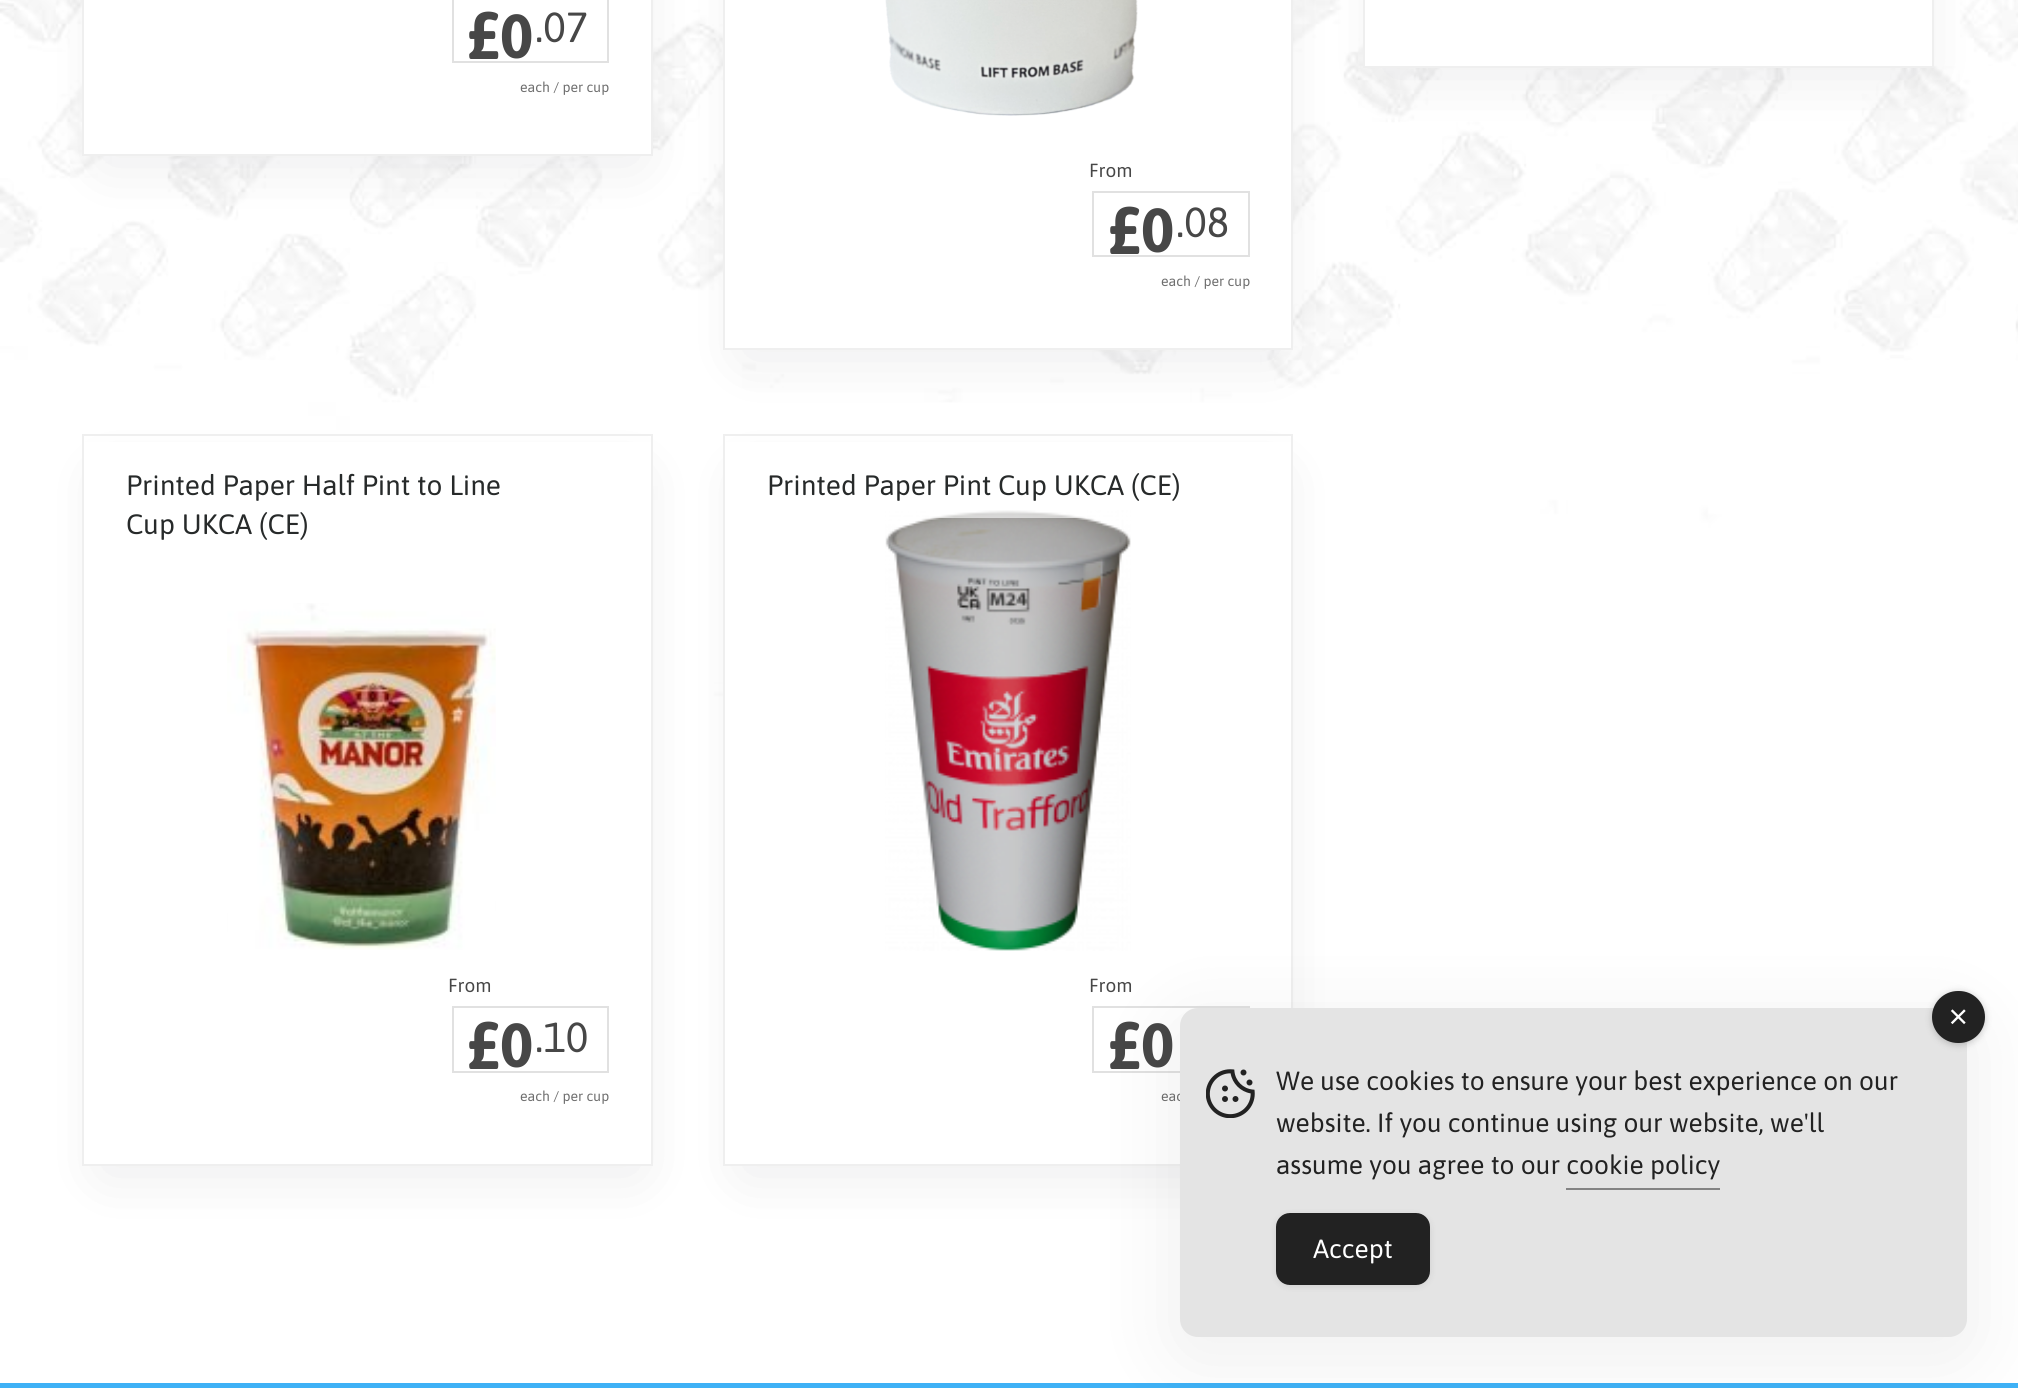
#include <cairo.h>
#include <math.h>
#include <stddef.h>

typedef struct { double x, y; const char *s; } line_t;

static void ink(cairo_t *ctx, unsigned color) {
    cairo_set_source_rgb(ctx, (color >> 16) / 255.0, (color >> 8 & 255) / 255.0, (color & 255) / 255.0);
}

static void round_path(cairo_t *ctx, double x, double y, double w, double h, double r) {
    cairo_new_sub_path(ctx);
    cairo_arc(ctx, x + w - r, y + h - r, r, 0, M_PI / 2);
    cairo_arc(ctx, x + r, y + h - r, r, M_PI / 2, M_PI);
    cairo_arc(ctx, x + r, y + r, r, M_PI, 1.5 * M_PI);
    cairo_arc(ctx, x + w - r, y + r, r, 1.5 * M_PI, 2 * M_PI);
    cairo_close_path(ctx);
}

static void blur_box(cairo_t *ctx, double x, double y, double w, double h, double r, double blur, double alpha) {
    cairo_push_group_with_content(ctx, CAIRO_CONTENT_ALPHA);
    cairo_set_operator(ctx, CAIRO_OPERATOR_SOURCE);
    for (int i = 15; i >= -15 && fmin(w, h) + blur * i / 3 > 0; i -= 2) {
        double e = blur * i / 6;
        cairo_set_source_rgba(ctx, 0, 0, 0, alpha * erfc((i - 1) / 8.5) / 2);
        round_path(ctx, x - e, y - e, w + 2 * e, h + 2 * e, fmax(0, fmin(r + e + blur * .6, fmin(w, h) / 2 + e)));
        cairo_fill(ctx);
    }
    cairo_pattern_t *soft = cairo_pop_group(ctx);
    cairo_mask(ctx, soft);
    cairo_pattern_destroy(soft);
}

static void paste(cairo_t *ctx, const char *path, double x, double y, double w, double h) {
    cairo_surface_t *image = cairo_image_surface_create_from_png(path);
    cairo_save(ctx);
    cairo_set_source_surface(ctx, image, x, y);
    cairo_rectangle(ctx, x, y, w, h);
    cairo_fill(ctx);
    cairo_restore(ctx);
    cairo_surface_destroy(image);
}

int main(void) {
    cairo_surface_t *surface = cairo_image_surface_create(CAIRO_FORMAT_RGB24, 2018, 1388);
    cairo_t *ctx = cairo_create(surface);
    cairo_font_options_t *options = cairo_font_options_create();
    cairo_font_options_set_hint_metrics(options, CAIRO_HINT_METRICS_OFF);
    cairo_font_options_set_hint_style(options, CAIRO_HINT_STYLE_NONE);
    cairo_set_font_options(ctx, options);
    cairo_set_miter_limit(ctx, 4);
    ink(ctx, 0xFFFFFF);
    cairo_paint(ctx);
    paste(ctx, "media/1.png", 0, 0, 2018, 724);
    ink(ctx, 0x0C0C0D);
    blur_box(ctx, 103, -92, 536, 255, 0, 30.5, 0.08);
    ink(ctx, 0xFFFFFF);
    cairo_rectangle(ctx, 83, -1, 569, 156);
    cairo_fill_preserve(ctx);
    ink(ctx, 0xEFEFEF);
    cairo_stroke(ctx);
    cairo_rectangle(ctx, 453, -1, 155, 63);
    ink(ctx, 0xE1E1E1);
    cairo_stroke(ctx);
    cairo_select_font_face(ctx, "Asap", CAIRO_FONT_SLANT_NORMAL, CAIRO_FONT_WEIGHT_BOLD);
    cairo_set_font_size(ctx, 67);
    ink(ctx, 0x474747);
    cairo_move_to(ctx, 465, 59);
    cairo_show_text(ctx, "£");
    cairo_set_font_size(ctx, 62);
    cairo_move_to(ctx, 500, 58);
    cairo_show_text(ctx, "0");
    cairo_select_font_face(ctx, "Asap", CAIRO_FONT_SLANT_NORMAL, CAIRO_FONT_WEIGHT_NORMAL);
    cairo_set_font_size(ctx, 42);
    cairo_move_to(ctx, 535, 42);
    cairo_show_text(ctx, ".07");
    cairo_set_font_size(ctx, 14);
    ink(ctx, 0x6E6E6E);
    cairo_move_to(ctx, 520, 92);
    cairo_show_text(ctx, "each / per cup");
    ink(ctx, 0x0C0C0D);
    blur_box(ctx, 744, -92, 535, 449, 0, 30.5, 0.08);
    ink(ctx, 0xFFFFFF);
    cairo_rectangle(ctx, 724, -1, 568, 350);
    cairo_fill_preserve(ctx);
    ink(ctx, 0xEFEFEF);
    cairo_stroke(ctx);
    ink(ctx, 0x0C0C0D);
    blur_box(ctx, 1384, -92, 536, 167, 0, 30.5, 0.08);
    ink(ctx, 0xFFFFFF);
    cairo_rectangle(ctx, 1364, -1, 569, 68);
    cairo_fill_preserve(ctx);
    ink(ctx, 0xEFEFEF);
    cairo_stroke(ctx);
    paste(ctx, "media/2.png", 885, 0, 253, 116);
    cairo_rectangle(ctx, 1093, 192, 156, 64);
    ink(ctx, 0xE1E1E1);
    cairo_stroke(ctx);
    cairo_set_font_size(ctx, 19);
    ink(ctx, 0x474747);
    cairo_move_to(ctx, 1089, 177);
    cairo_show_text(ctx, "From");
    cairo_select_font_face(ctx, "Asap", CAIRO_FONT_SLANT_NORMAL, CAIRO_FONT_WEIGHT_BOLD);
    cairo_set_font_size(ctx, 67);
    cairo_move_to(ctx, 1106, 254);
    cairo_show_text(ctx, "£");
    cairo_set_font_size(ctx, 62);
    cairo_move_to(ctx, 1141, 252);
    cairo_show_text(ctx, "0");
    cairo_select_font_face(ctx, "Asap", CAIRO_FONT_SLANT_NORMAL, CAIRO_FONT_WEIGHT_NORMAL);
    cairo_set_font_size(ctx, 42);
    cairo_move_to(ctx, 1176, 237);
    cairo_show_text(ctx, ".08");
    cairo_set_font_size(ctx, 14);
    ink(ctx, 0x6E6E6E);
    cairo_move_to(ctx, 1161, 286);
    cairo_show_text(ctx, "each / per cup");
    ink(ctx, 0x0C0C0D);
    blur_box(ctx, 103, 476, 536, 697, 0, 30.5, 0.08);
    ink(ctx, 0xFFFFFF);
    cairo_rectangle(ctx, 84, 442, 567, 722);
    cairo_fill(ctx);
    cairo_rectangle(ctx, 83, 435, 569, 730);
    ink(ctx, 0xEFEFEF);
    cairo_stroke(ctx);
    cairo_set_font_size(ctx, 28);
    ink(ctx, 0x272A2A);
    cairo_move_to(ctx, 126, 495);
    cairo_show_text(ctx, "Printed Paper Half Pint to Line");
    cairo_move_to(ctx, 126, 534);
    cairo_show_text(ctx, "Cup UKCA (CE)");
    paste(ctx, "media/3.png", 227, 603, 269, 347);
    cairo_rectangle(ctx, 453, 1007, 155, 65);
    ink(ctx, 0xE1E1E1);
    cairo_stroke(ctx);
    cairo_set_font_size(ctx, 19);
    ink(ctx, 0x474747);
    cairo_move_to(ctx, 448, 992);
    cairo_show_text(ctx, "From");
    cairo_select_font_face(ctx, "Asap", CAIRO_FONT_SLANT_NORMAL, CAIRO_FONT_WEIGHT_BOLD);
    cairo_set_font_size(ctx, 67);
    cairo_move_to(ctx, 465, 1069);
    cairo_show_text(ctx, "£");
    cairo_set_font_size(ctx, 62);
    cairo_move_to(ctx, 500, 1067);
    cairo_show_text(ctx, "0");
    cairo_select_font_face(ctx, "Asap", CAIRO_FONT_SLANT_NORMAL, CAIRO_FONT_WEIGHT_NORMAL);
    cairo_set_font_size(ctx, 42);
    cairo_move_to(ctx, 535, 1052);
    cairo_show_text(ctx, ".10");
    cairo_set_font_size(ctx, 14);
    ink(ctx, 0x6E6E6E);
    cairo_move_to(ctx, 520, 1101);
    cairo_show_text(ctx, "each / per cup");
    ink(ctx, 0x0C0C0D);
    blur_box(ctx, 744, 476, 535, 697, 0, 30.5, 0.08);
    ink(ctx, 0xFFFFFF);
    cairo_rectangle(ctx, 725, 442, 566, 722);
    cairo_fill(ctx);
    cairo_rectangle(ctx, 724, 435, 568, 730);
    ink(ctx, 0xEFEFEF);
    cairo_stroke(ctx);
    paste(ctx, "media/4.png", 885, 510, 246, 441);
    cairo_set_source_rgba(ctx, 1, 1, 1, 0.6);
    cairo_rectangle(ctx, 929, 510, 158, 8);
    cairo_fill(ctx);
    cairo_set_font_size(ctx, 28);
    ink(ctx, 0x272A2A);
    cairo_move_to(ctx, 767, 495);
    cairo_show_text(ctx, "Printed Paper Pint Cup UKCA (CE)");
    cairo_rectangle(ctx, 1093, 1007, 156, 65);
    ink(ctx, 0xE1E1E1);
    cairo_stroke(ctx);
    cairo_set_font_size(ctx, 19);
    ink(ctx, 0x474747);
    cairo_move_to(ctx, 1089, 992);
    cairo_show_text(ctx, "From");
    cairo_select_font_face(ctx, "Asap", CAIRO_FONT_SLANT_NORMAL, CAIRO_FONT_WEIGHT_BOLD);
    cairo_set_font_size(ctx, 67);
    cairo_move_to(ctx, 1106, 1069);
    cairo_show_text(ctx, "£");
    cairo_set_font_size(ctx, 62);
    cairo_move_to(ctx, 1141, 1067);
    cairo_show_text(ctx, "0");
    cairo_select_font_face(ctx, "Asap", CAIRO_FONT_SLANT_NORMAL, CAIRO_FONT_WEIGHT_NORMAL);
    cairo_set_font_size(ctx, 14);
    ink(ctx, 0x6E6E6E);
    cairo_move_to(ctx, 1161, 1101);
    cairo_show_text(ctx, "eac");
    ink(ctx, 0x3EB1F6);
    cairo_rectangle(ctx, 0, 1383, 2018, 5);
    cairo_fill(ctx);
    ink(ctx, 0x000000);
    blur_box(ctx, 1162, 1008, 823, 364, 35, 35, 0.05);
    ink(ctx, 0xE4E4E4);
    round_path(ctx, 1180, 1008, 787, 329, 18);
    cairo_fill(ctx);
    ink(ctx, 0x000000);
    blur_box(ctx, 1932, 992, 53, 53, 26.5, 3.5, 0.2);
    ink(ctx, 0x222222);
    round_path(ctx, 1932, 991, 53, 52, 26);
    cairo_fill(ctx);
    paste(ctx, "media/5.png", 1950, 1009, 16, 16);
    paste(ctx, "media/6.png", 1206, 1069, 49, 49);
    cairo_set_font_size(ctx, 26.25);
    {
        static const line_t items[] = {
            {1276, 1090, "We use cookies to ensure your best experience on our"},
            {1276, 1132, "website. If you continue using our website, we'll"},
            {1276, 1174, "assume you agree to our cookie policy"},
        };
        for (size_t i = 0; i < sizeof items / sizeof *items; i++) {
            cairo_move_to(ctx, items[i].x, items[i].y);
            cairo_show_text(ctx, items[i].s);
        }
    }
    ink(ctx, 0x838383);
    cairo_rectangle(ctx, 1566, 1188, 154, 2);
    cairo_fill(ctx);
    ink(ctx, 0x000000);
    blur_box(ctx, 1276, 1215, 154, 71, 14, 3.5, 0.1);
    ink(ctx, 0x222222);
    round_path(ctx, 1277, 1214, 152, 70, 13);
    cairo_fill_preserve(ctx);
    cairo_stroke(ctx);
    ink(ctx, 0xFFFFFF);
    cairo_move_to(ctx, 1313, 1258);
    cairo_show_text(ctx, "Accept");
    cairo_surface_write_to_png(surface, "image.png");
    cairo_font_options_destroy(options);
    cairo_destroy(ctx);
    cairo_surface_destroy(surface);
    return 0;
}
